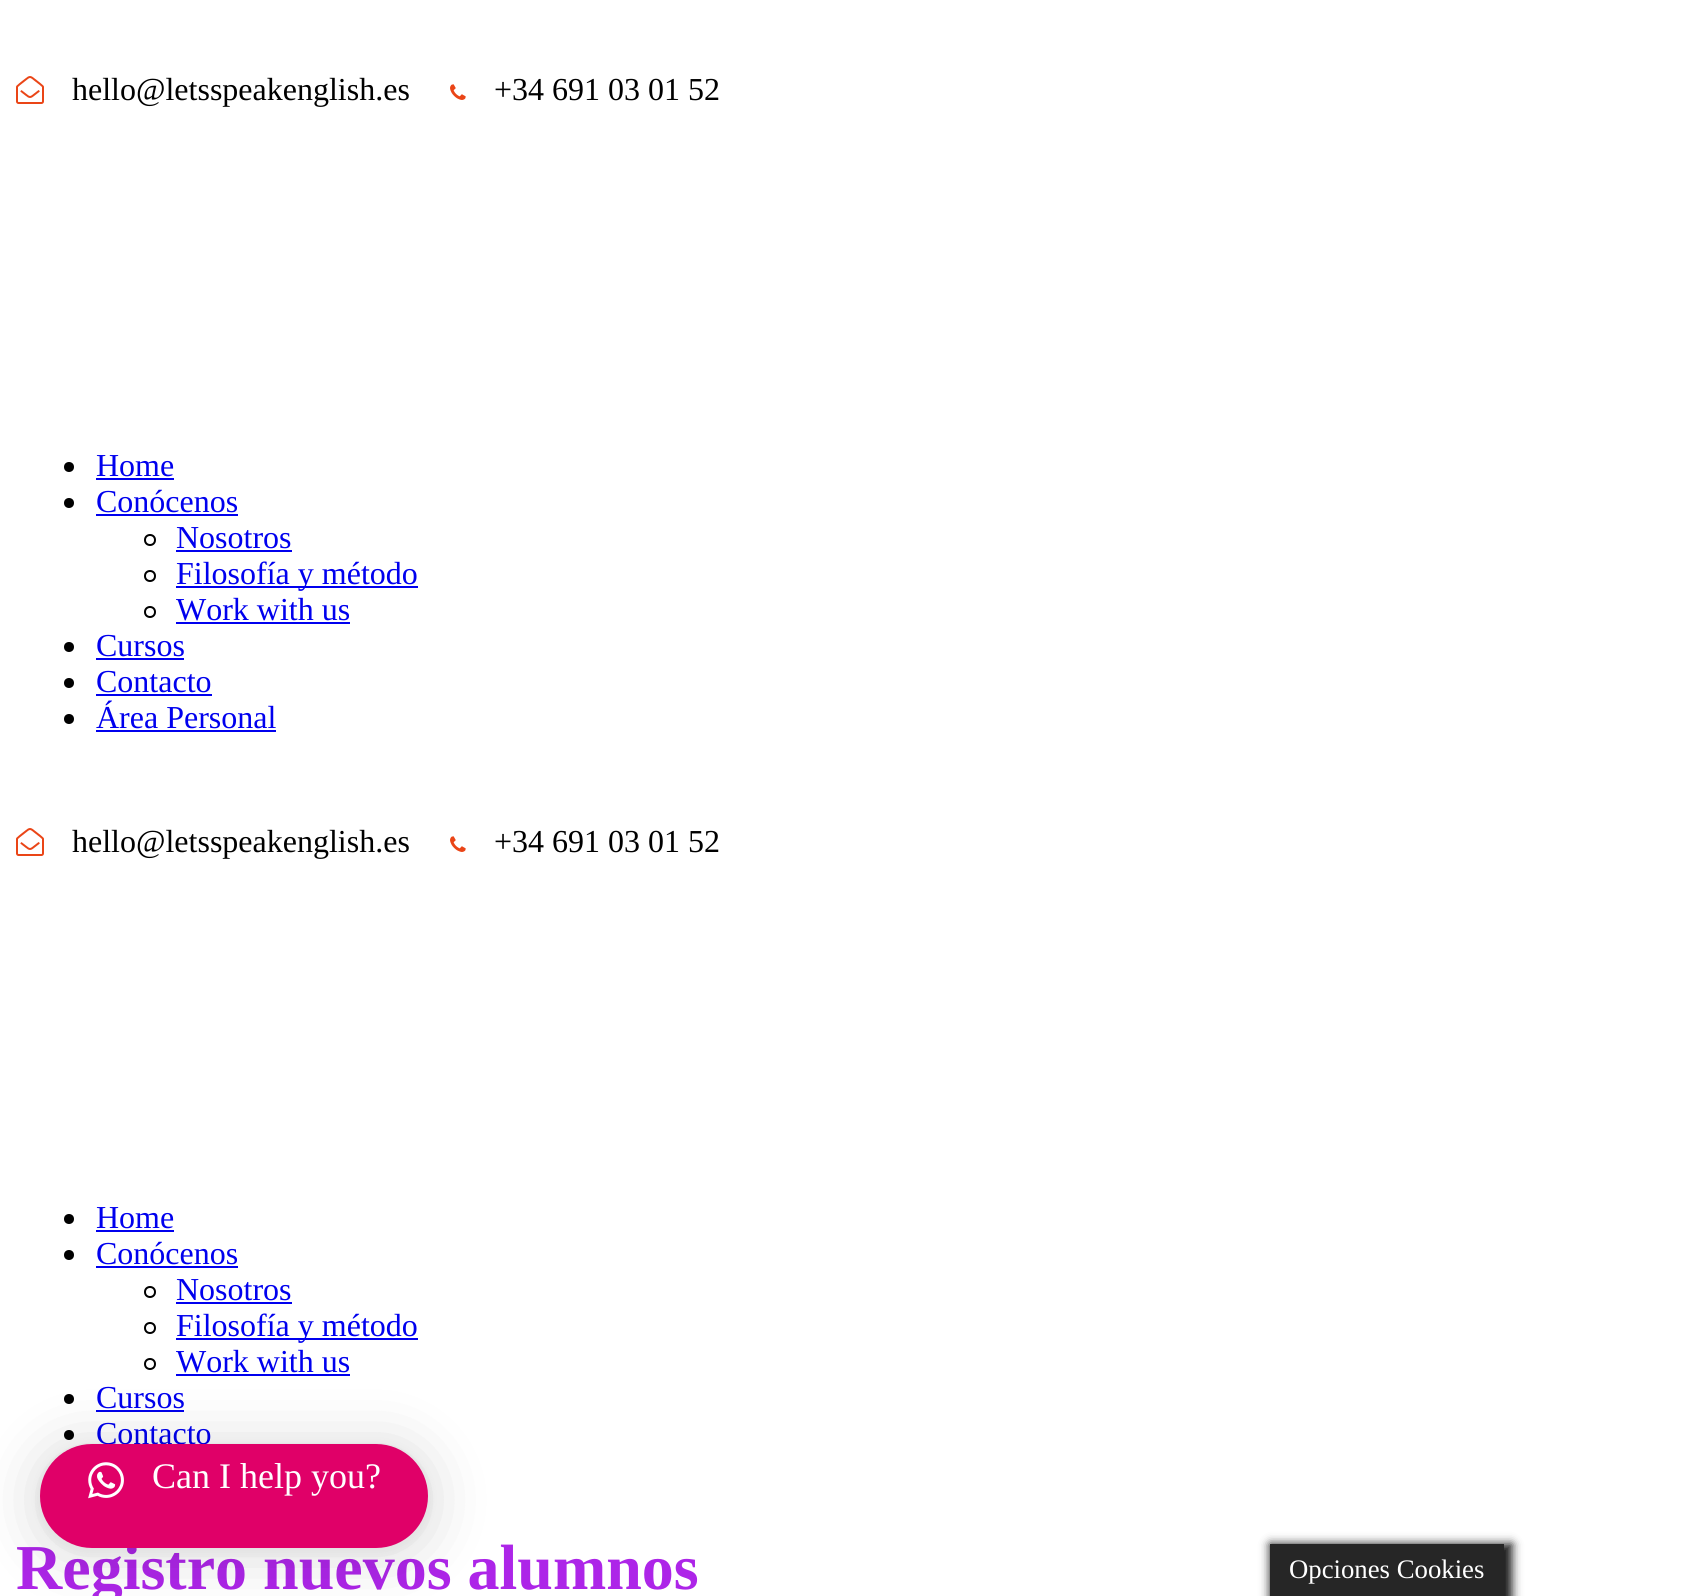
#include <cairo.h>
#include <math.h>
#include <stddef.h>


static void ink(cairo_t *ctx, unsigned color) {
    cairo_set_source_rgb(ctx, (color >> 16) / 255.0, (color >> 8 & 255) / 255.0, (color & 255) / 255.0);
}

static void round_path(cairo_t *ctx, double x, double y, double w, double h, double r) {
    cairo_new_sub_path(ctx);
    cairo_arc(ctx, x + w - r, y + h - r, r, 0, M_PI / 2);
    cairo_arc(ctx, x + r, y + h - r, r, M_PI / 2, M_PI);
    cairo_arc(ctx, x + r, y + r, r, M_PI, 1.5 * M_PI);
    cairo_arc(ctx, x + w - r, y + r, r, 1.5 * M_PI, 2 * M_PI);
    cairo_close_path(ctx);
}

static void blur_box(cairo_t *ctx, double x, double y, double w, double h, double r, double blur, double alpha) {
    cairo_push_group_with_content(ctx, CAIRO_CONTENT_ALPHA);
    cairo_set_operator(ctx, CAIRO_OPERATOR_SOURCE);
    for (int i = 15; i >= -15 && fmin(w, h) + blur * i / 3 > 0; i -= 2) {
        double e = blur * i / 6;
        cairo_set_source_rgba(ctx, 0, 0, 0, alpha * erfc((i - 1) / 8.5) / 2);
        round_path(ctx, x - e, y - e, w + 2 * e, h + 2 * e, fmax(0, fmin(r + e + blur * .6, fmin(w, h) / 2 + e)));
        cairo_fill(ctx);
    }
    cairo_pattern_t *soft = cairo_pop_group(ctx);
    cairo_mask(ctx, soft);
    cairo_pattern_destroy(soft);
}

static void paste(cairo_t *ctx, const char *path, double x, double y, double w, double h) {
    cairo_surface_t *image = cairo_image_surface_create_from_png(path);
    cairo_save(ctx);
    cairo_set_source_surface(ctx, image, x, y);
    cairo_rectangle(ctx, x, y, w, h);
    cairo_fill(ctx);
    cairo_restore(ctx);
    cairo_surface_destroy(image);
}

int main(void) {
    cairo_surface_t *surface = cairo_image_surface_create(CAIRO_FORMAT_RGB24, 1704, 1596);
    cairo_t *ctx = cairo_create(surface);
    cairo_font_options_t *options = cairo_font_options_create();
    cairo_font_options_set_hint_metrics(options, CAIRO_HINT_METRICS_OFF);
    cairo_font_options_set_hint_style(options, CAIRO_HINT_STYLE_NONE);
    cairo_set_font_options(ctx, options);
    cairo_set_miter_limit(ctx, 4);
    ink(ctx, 0xFFFFFF);
    cairo_paint(ctx);
    paste(ctx, "media/1.png", 16, 76, 28, 28);
    cairo_select_font_face(ctx, "Liberation Serif", CAIRO_FONT_SLANT_NORMAL, CAIRO_FONT_WEIGHT_NORMAL);
    cairo_set_font_size(ctx, 32);
    ink(ctx, 0x000000);
    cairo_move_to(ctx, 72, 100);
    cairo_show_text(ctx, "hello@letsspeakenglish.es");
    paste(ctx, "media/2.png", 450, 84, 16, 16);
    cairo_move_to(ctx, 494, 100);
    cairo_show_text(ctx, "+34 691 03 01 52");
    cairo_new_path(ctx);
    cairo_arc(ctx, 69, 467, 5, 0, 2 * M_PI);
    cairo_fill(ctx);
    ink(ctx, 0x0000EE);
    cairo_move_to(ctx, 96, 476);
    cairo_show_text(ctx, "Home");
    cairo_rectangle(ctx, 96, 478, 78, 2);
    cairo_fill(ctx);
    ink(ctx, 0x000000);
    cairo_arc(ctx, 69, 503, 5, 0, 2 * M_PI);
    cairo_fill(ctx);
    ink(ctx, 0x0000EE);
    cairo_move_to(ctx, 96, 512);
    cairo_show_text(ctx, "Conócenos");
    cairo_rectangle(ctx, 96, 514, 142, 2);
    cairo_fill(ctx);
    cairo_arc(ctx, 150, 540, 5, 0, 2 * M_PI);
    ink(ctx, 0x000000);
    cairo_stroke(ctx);
    ink(ctx, 0x0000EE);
    cairo_move_to(ctx, 176, 548);
    cairo_show_text(ctx, "Nosotros");
    cairo_rectangle(ctx, 176, 550, 116, 2);
    cairo_fill(ctx);
    cairo_arc(ctx, 150, 576, 5, 0, 2 * M_PI);
    ink(ctx, 0x000000);
    cairo_stroke(ctx);
    ink(ctx, 0x0000EE);
    cairo_rectangle(ctx, 176, 586, 242, 2);
    cairo_fill(ctx);
    cairo_move_to(ctx, 176, 584);
    cairo_show_text(ctx, "Filosofía y método");
    cairo_new_path(ctx);
    cairo_arc(ctx, 150, 612, 5, 0, 2 * M_PI);
    ink(ctx, 0x000000);
    cairo_stroke(ctx);
    ink(ctx, 0x0000EE);
    cairo_move_to(ctx, 176, 620);
    cairo_show_text(ctx, "Work with us");
    cairo_rectangle(ctx, 176, 622, 174, 2);
    cairo_fill(ctx);
    ink(ctx, 0x000000);
    cairo_arc(ctx, 69, 647, 5, 0, 2 * M_PI);
    cairo_fill(ctx);
    ink(ctx, 0x0000EE);
    cairo_move_to(ctx, 96, 656);
    cairo_show_text(ctx, "Cursos");
    cairo_rectangle(ctx, 96, 658, 88, 2);
    cairo_fill(ctx);
    ink(ctx, 0x000000);
    cairo_arc(ctx, 69, 683, 5, 0, 2 * M_PI);
    cairo_fill(ctx);
    ink(ctx, 0x0000EE);
    cairo_move_to(ctx, 96, 692);
    cairo_show_text(ctx, "Contacto");
    cairo_rectangle(ctx, 96, 694, 116, 2);
    cairo_fill(ctx);
    ink(ctx, 0x000000);
    cairo_arc(ctx, 69, 719, 5, 0, 2 * M_PI);
    cairo_fill(ctx);
    ink(ctx, 0x0000EE);
    cairo_move_to(ctx, 96, 728);
    cairo_show_text(ctx, "Área Personal");
    cairo_rectangle(ctx, 96, 730, 180, 2);
    cairo_fill(ctx);
    paste(ctx, "media/1.png", 16, 828, 28, 28);
    ink(ctx, 0x000000);
    cairo_move_to(ctx, 72, 852);
    cairo_show_text(ctx, "hello@letsspeakenglish.es");
    paste(ctx, "media/2.png", 450, 836, 16, 16);
    cairo_move_to(ctx, 494, 852);
    cairo_show_text(ctx, "+34 691 03 01 52");
    cairo_new_path(ctx);
    cairo_arc(ctx, 69, 1219, 5, 0, 2 * M_PI);
    cairo_fill(ctx);
    ink(ctx, 0x0000EE);
    cairo_move_to(ctx, 96, 1228);
    cairo_show_text(ctx, "Home");
    cairo_rectangle(ctx, 96, 1230, 78, 2);
    cairo_fill(ctx);
    ink(ctx, 0x000000);
    cairo_arc(ctx, 69, 1255, 5, 0, 2 * M_PI);
    cairo_fill(ctx);
    ink(ctx, 0x0000EE);
    cairo_move_to(ctx, 96, 1264);
    cairo_show_text(ctx, "Conócenos");
    cairo_rectangle(ctx, 96, 1266, 142, 2);
    cairo_fill(ctx);
    cairo_arc(ctx, 150, 1292, 5, 0, 2 * M_PI);
    ink(ctx, 0x000000);
    cairo_stroke(ctx);
    ink(ctx, 0x0000EE);
    cairo_move_to(ctx, 176, 1300);
    cairo_show_text(ctx, "Nosotros");
    cairo_rectangle(ctx, 176, 1302, 116, 2);
    cairo_fill(ctx);
    cairo_arc(ctx, 150, 1328, 5, 0, 2 * M_PI);
    ink(ctx, 0x000000);
    cairo_stroke(ctx);
    ink(ctx, 0x0000EE);
    cairo_rectangle(ctx, 176, 1338, 242, 2);
    cairo_fill(ctx);
    cairo_move_to(ctx, 176, 1336);
    cairo_show_text(ctx, "Filosofía y método");
    cairo_new_path(ctx);
    cairo_arc(ctx, 150, 1364, 5, 0, 2 * M_PI);
    ink(ctx, 0x000000);
    cairo_stroke(ctx);
    ink(ctx, 0x0000EE);
    cairo_move_to(ctx, 176, 1372);
    cairo_show_text(ctx, "Work with us");
    cairo_rectangle(ctx, 176, 1374, 174, 2);
    cairo_fill(ctx);
    ink(ctx, 0x000000);
    cairo_arc(ctx, 69, 1399, 5, 0, 2 * M_PI);
    cairo_fill(ctx);
    ink(ctx, 0x0000EE);
    cairo_move_to(ctx, 96, 1408);
    cairo_show_text(ctx, "Cursos");
    cairo_rectangle(ctx, 96, 1410, 88, 2);
    cairo_fill(ctx);
    ink(ctx, 0x000000);
    cairo_arc(ctx, 69, 1435, 5, 0, 2 * M_PI);
    cairo_fill(ctx);
    ink(ctx, 0x0000EE);
    cairo_move_to(ctx, 96, 1444);
    cairo_show_text(ctx, "Contacto");
    cairo_select_font_face(ctx, "Liberation Serif", CAIRO_FONT_SLANT_NORMAL, CAIRO_FONT_WEIGHT_BOLD);
    cairo_set_font_size(ctx, 64);
    ink(ctx, 0xAD25E8);
    cairo_move_to(ctx, 16, 1589);
    cairo_show_text(ctx, "Registro nuevos alumnos");
    ink(ctx, 0x000000);
    blur_box(ctx, 40, 1448, 388, 104, 52, 32, 0.16);
    blur_box(ctx, 40, 1446, 388, 104, 52, 6, 0.06);
    ink(ctx, 0xE00068);
    round_path(ctx, 40, 1444, 388, 104, 52);
    cairo_fill(ctx);
    paste(ctx, "media/3.png", 88, 1462, 36, 37);
    cairo_select_font_face(ctx, "Liberation Serif", CAIRO_FONT_SLANT_NORMAL, CAIRO_FONT_WEIGHT_NORMAL);
    cairo_set_font_size(ctx, 36);
    ink(ctx, 0xFFFFFF);
    cairo_move_to(ctx, 152, 1488);
    cairo_show_text(ctx, "Can I help you?");
    ink(ctx, 0x161616);
    blur_box(ctx, 1270, 1544, 242, 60, 0, 5, 1);
    ink(ctx, 0x262626);
    cairo_rectangle(ctx, 1270, 1544, 234, 52);
    cairo_fill(ctx);
    cairo_set_font_size(ctx, 26.75);
    ink(ctx, 0xFFFFFF);
    cairo_move_to(ctx, 1289, 1578);
    cairo_show_text(ctx, "Opciones Cookies");
    cairo_surface_write_to_png(surface, "image.png");
    cairo_font_options_destroy(options);
    cairo_destroy(ctx);
    cairo_surface_destroy(surface);
    return 0;
}
